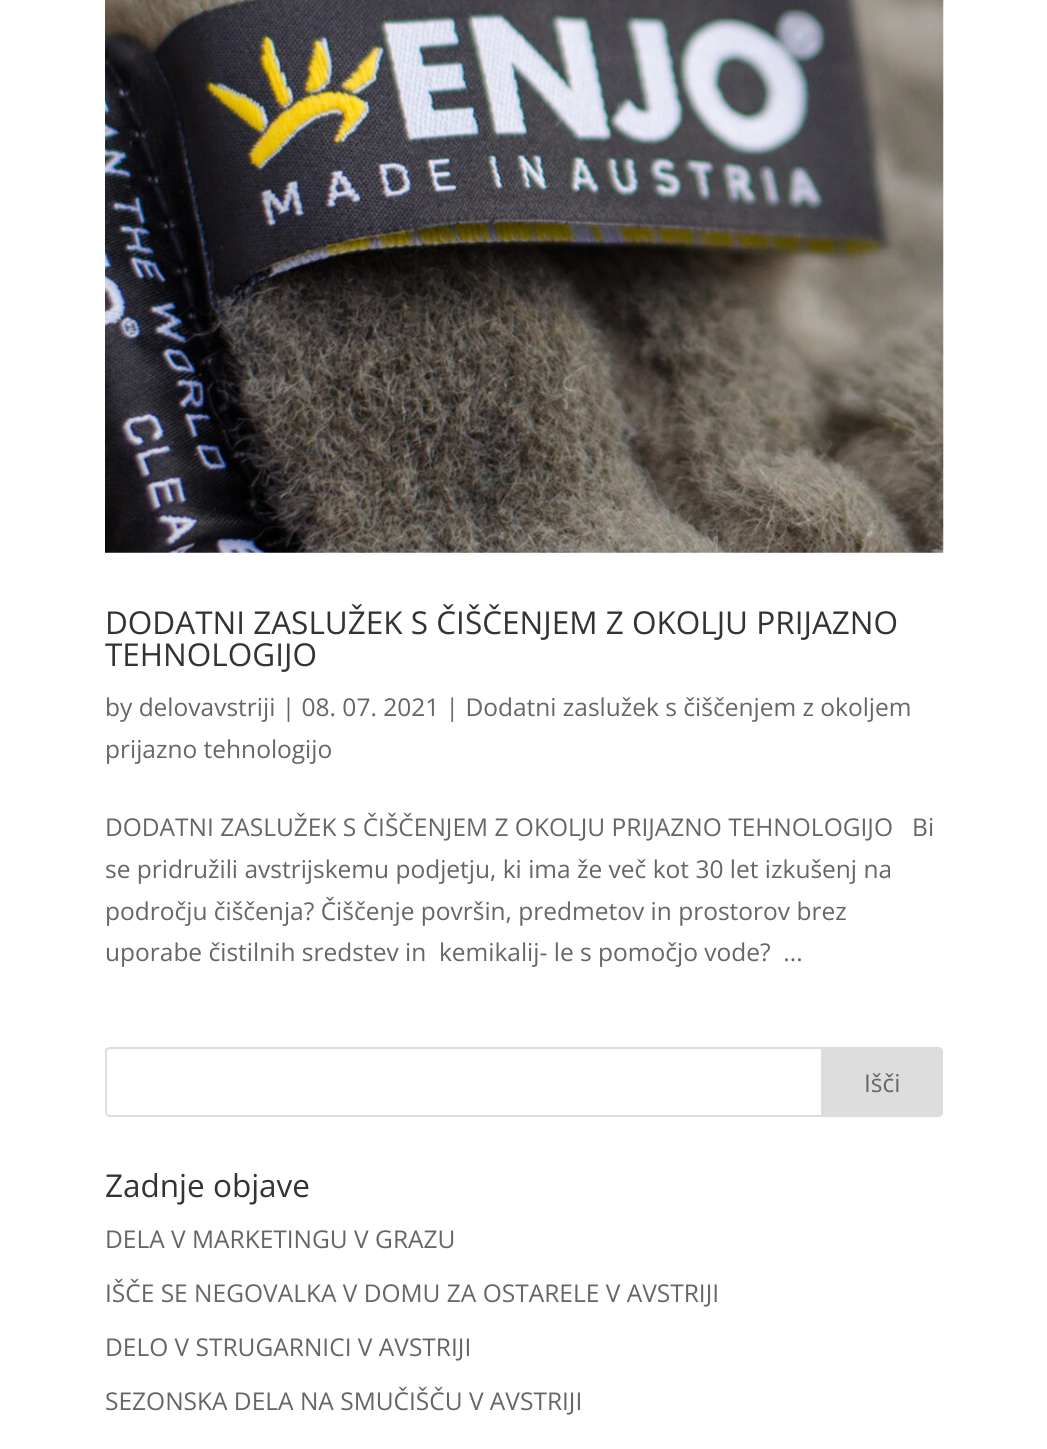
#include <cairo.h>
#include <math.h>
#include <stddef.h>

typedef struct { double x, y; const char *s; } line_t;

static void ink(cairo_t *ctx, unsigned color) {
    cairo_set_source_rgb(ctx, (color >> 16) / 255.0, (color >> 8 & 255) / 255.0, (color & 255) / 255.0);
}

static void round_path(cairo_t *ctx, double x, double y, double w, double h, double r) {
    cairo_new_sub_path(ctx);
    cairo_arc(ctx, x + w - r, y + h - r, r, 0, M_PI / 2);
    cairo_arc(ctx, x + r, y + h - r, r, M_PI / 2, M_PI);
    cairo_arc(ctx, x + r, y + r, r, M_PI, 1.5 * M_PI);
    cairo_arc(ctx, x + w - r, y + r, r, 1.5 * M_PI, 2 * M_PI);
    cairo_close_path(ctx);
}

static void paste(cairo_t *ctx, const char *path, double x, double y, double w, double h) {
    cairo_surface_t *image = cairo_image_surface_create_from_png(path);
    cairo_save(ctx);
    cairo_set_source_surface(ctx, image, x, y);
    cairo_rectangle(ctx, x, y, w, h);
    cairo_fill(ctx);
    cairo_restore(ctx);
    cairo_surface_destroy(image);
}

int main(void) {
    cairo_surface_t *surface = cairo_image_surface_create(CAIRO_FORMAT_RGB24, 1047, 1449);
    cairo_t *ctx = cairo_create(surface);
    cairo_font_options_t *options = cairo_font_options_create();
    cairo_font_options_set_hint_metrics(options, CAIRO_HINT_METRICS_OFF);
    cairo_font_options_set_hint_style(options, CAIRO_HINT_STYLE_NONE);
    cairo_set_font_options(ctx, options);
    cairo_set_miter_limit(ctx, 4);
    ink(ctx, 0xFFFFFF);
    cairo_paint(ctx);
    paste(ctx, "media/1.png", 105, 0, 839, 553);
    cairo_select_font_face(ctx, "Open Sans", CAIRO_FONT_SLANT_NORMAL, CAIRO_FONT_WEIGHT_NORMAL);
    cairo_set_font_size(ctx, 31.5);
    ink(ctx, 0x333333);
    cairo_move_to(ctx, 105, 634);
    cairo_show_text(ctx, "DODATNI ZASLUŽEK S ČIŠČENJEM Z OKOLJU PRIJAZNO");
    cairo_move_to(ctx, 105, 666);
    cairo_show_text(ctx, "TEHNOLOGIJO");
    cairo_set_font_size(ctx, 24.5);
    ink(ctx, 0x666666);
    {
        static const line_t items[] = {
            {105, 716, "by delovavstriji | 08. 07. 2021 | Dodatni zaslužek s čiščenjem z okoljem"},
            {105, 758, "prijazno tehnologijo"},
            {105, 836, "DODATNI ZASLUŽEK S ČIŠČENJEM Z OKOLJU PRIJAZNO TEHNOLOGIJO   Bi"},
            {105, 878, "se pridružili avstrijskemu podjetju, ki ima že več kot 30 let izkušenj na"},
            {105, 920, "področju čiščenja? Čiščenje površin, predmetov in prostorov brez"},
            {105, 961, "uporabe čistilnih sredstev in  kemikalij- le s pomočjo vode?  ..."},
        };
        for (size_t i = 0; i < sizeof items / sizeof *items; i++) {
            cairo_move_to(ctx, items[i].x, items[i].y);
            cairo_show_text(ctx, items[i].s);
        }
    }
    round_path(ctx, 106, 1048, 836, 68, 4);
    ink(ctx, 0xDDDDDD);
    cairo_stroke(ctx);
    cairo_new_path(ctx);
    cairo_move_to(ctx, 822, 1048);
    cairo_line_to(ctx, 938, 1048);
    cairo_curve_to(ctx, 940, 1048, 942, 1050, 942, 1052);
    cairo_line_to(ctx, 942, 1112);
    cairo_curve_to(ctx, 942, 1114, 940, 1116, 938, 1116);
    cairo_line_to(ctx, 822, 1116);
    cairo_close_path(ctx);
    cairo_fill_preserve(ctx);
    cairo_stroke(ctx);
    ink(ctx, 0x666666);
    cairo_move_to(ctx, 864, 1092);
    cairo_show_text(ctx, "Išči");
    cairo_set_font_size(ctx, 31.5);
    ink(ctx, 0x333333);
    cairo_move_to(ctx, 105, 1197);
    cairo_show_text(ctx, "Zadnje objave");
    cairo_set_font_size(ctx, 24.5);
    ink(ctx, 0x666666);
    {
        static const line_t items[] = {
            {105, 1248, "DELA V MARKETINGU V GRAZU"},
            {105, 1302, "IŠČE SE NEGOVALKA V DOMU ZA OSTARELE V AVSTRIJI"},
            {105, 1356, "DELO V STRUGARNICI V AVSTRIJI"},
            {105, 1410, "SEZONSKA DELA NA SMUČIŠČU V AVSTRIJI"},
        };
        for (size_t i = 0; i < sizeof items / sizeof *items; i++) {
            cairo_move_to(ctx, items[i].x, items[i].y);
            cairo_show_text(ctx, items[i].s);
        }
    }
    cairo_surface_write_to_png(surface, "image.png");
    cairo_font_options_destroy(options);
    cairo_destroy(ctx);
    cairo_surface_destroy(surface);
    return 0;
}
